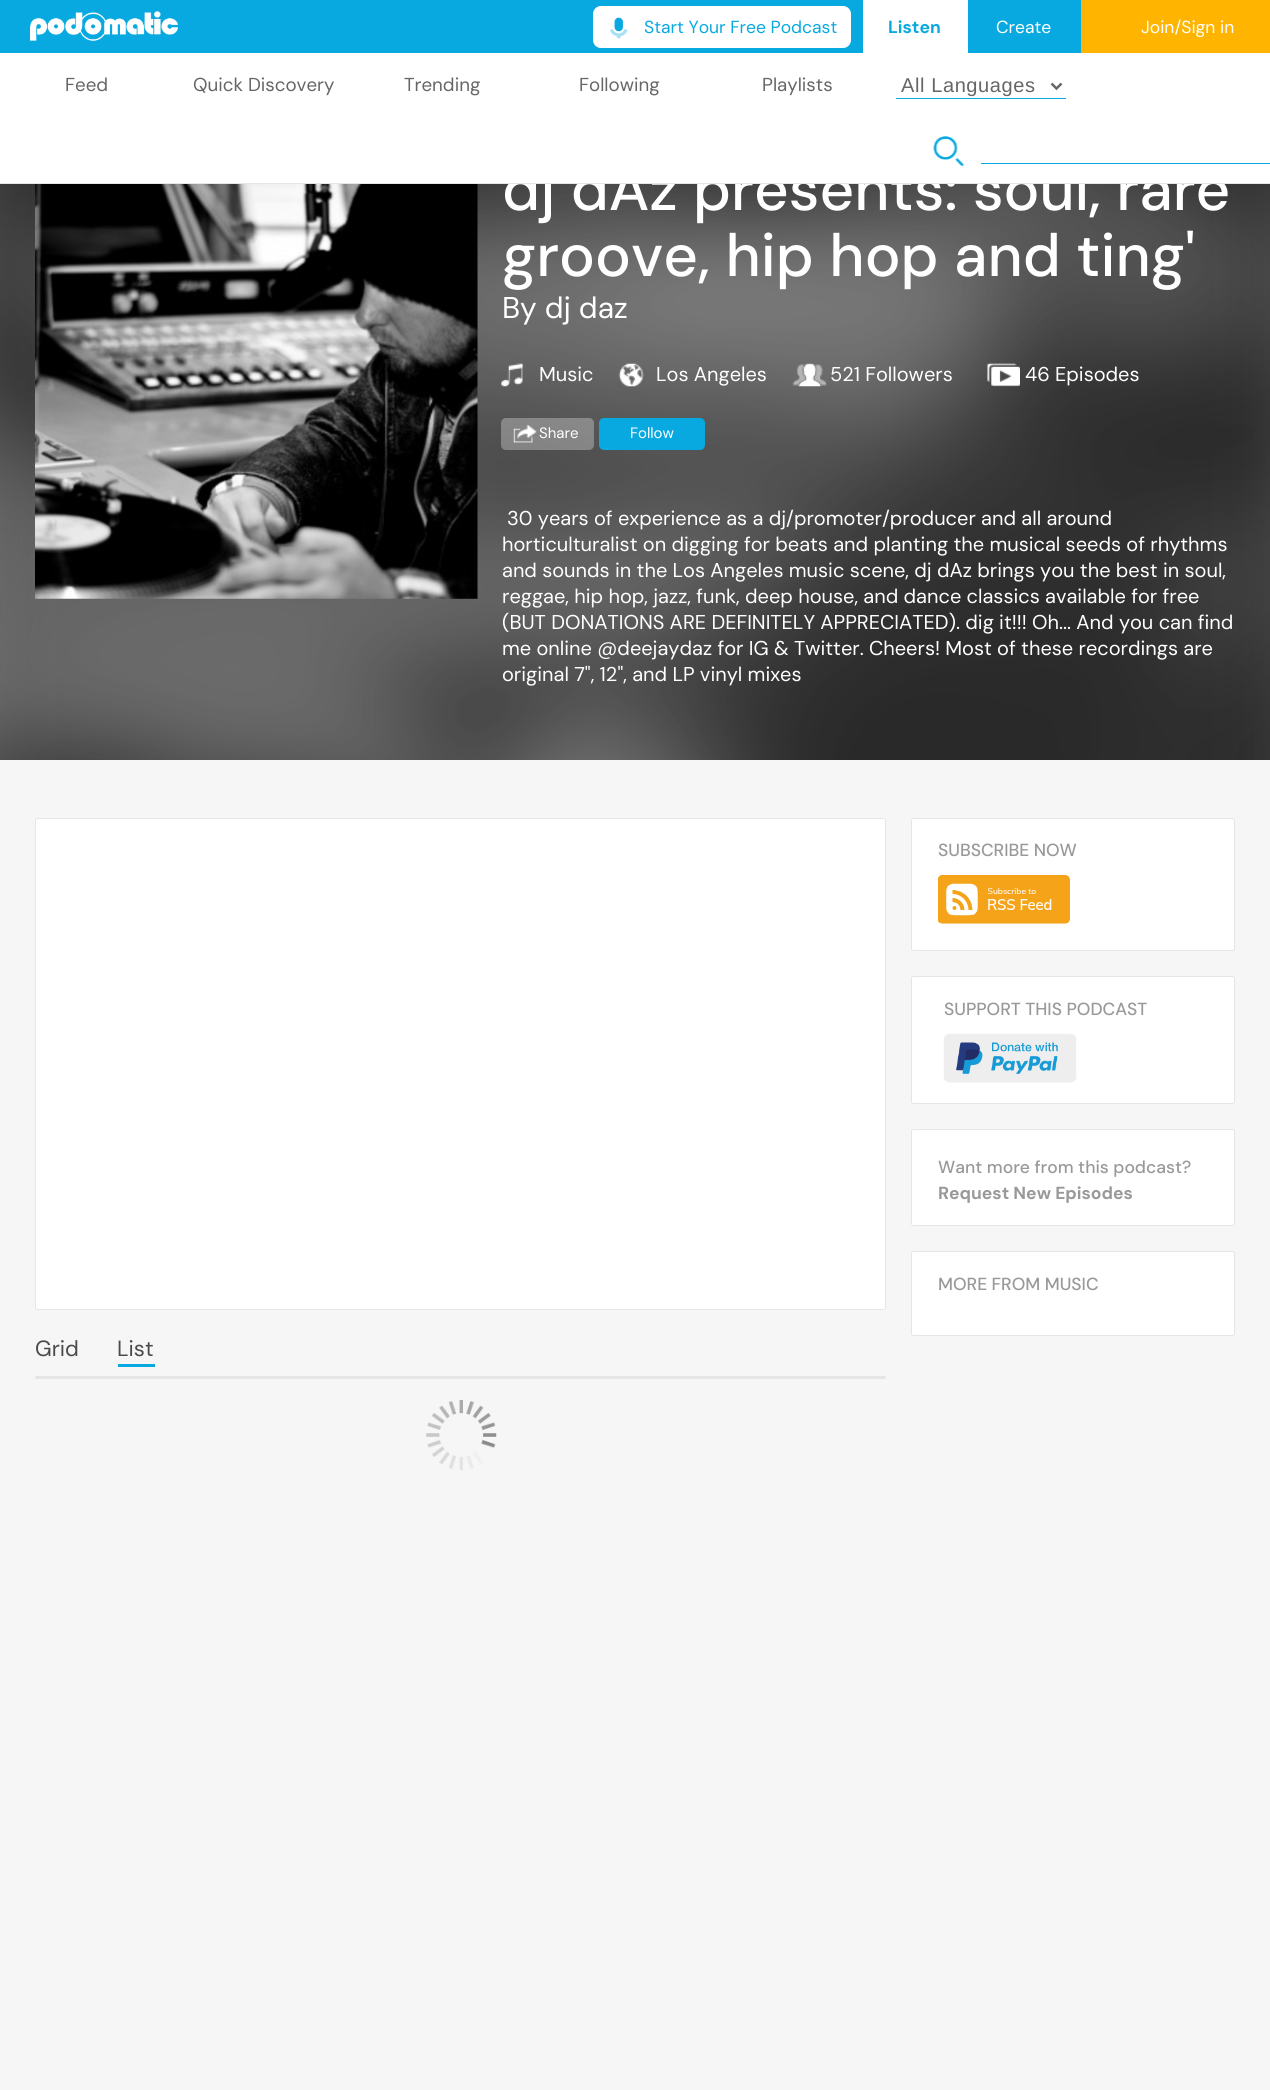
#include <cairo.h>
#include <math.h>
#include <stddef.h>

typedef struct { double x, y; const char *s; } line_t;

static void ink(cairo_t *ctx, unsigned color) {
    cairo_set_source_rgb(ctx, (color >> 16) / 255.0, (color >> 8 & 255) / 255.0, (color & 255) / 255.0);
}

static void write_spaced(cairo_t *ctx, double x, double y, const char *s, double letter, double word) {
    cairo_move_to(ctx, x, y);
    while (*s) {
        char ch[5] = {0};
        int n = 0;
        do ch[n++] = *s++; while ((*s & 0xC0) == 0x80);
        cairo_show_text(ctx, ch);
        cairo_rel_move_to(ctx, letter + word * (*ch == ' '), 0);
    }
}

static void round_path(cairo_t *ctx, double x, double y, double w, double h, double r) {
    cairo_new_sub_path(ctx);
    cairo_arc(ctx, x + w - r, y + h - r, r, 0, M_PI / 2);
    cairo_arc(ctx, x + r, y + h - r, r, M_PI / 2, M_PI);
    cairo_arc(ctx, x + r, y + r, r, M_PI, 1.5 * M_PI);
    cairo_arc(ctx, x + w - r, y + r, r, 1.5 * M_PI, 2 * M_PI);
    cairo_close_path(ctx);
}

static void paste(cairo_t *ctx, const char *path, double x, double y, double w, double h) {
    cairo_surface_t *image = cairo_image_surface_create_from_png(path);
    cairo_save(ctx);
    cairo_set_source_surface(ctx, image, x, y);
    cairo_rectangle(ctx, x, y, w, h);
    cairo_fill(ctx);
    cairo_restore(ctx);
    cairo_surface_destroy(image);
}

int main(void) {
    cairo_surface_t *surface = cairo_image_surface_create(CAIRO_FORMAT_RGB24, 1270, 2090);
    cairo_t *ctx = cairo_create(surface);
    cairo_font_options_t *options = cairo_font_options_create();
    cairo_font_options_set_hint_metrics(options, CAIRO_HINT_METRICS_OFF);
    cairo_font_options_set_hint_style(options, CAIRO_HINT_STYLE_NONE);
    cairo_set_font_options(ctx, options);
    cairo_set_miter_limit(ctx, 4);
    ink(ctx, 0xF6F6F6);
    cairo_paint(ctx);
    ink(ctx, 0x878787);
    cairo_rectangle(ctx, 0, 184, 1270, 576);
    cairo_fill(ctx);
    ink(ctx, 0x07A9E0);
    cairo_rectangle(ctx, 0, 0, 1081, 53);
    cairo_fill(ctx);
    paste(ctx, "media/1.png", 30, 11, 148, 30);
    ink(ctx, 0xFFFFFF);
    round_path(ctx, 593.5, 6.5, 257, 41, 7.5);
    cairo_fill_preserve(ctx);
    cairo_set_line_width(ctx, 1);
    cairo_stroke(ctx);
    paste(ctx, "media/2.png", 610, 17, 18, 22);
    cairo_select_font_face(ctx, "DM Sans", CAIRO_FONT_SLANT_NORMAL, CAIRO_FONT_WEIGHT_NORMAL);
    cairo_set_font_size(ctx, 17.5);
    ink(ctx, 0x07A9E0);
    cairo_move_to(ctx, 644, 33);
    cairo_show_text(ctx, "Start Your Free Podcast");
    ink(ctx, 0xFFFFFF);
    cairo_rectangle(ctx, 863, 0, 105, 53);
    cairo_fill(ctx);
    cairo_select_font_face(ctx, "DM Sans", CAIRO_FONT_SLANT_NORMAL, CAIRO_FONT_WEIGHT_BOLD);
    ink(ctx, 0x07A9E0);
    cairo_move_to(ctx, 888, 33);
    cairo_show_text(ctx, "Listen");
    cairo_select_font_face(ctx, "DM Sans", CAIRO_FONT_SLANT_NORMAL, CAIRO_FONT_WEIGHT_NORMAL);
    ink(ctx, 0xFFFFFF);
    cairo_move_to(ctx, 996, 33);
    cairo_show_text(ctx, "Create");
    ink(ctx, 0xFFB400);
    cairo_rectangle(ctx, 1081, 0, 189, 53);
    cairo_fill(ctx);
    ink(ctx, 0xFFFFFF);
    cairo_move_to(ctx, 1141, 33);
    cairo_show_text(ctx, "Join/Sign in");
    cairo_rectangle(ctx, 0, 53, 1270, 130);
    cairo_fill(ctx);
    paste(ctx, "media/10.png", 0, 184, 1270, 576);
    cairo_select_font_face(ctx, "DM Sans Medium", CAIRO_FONT_SLANT_NORMAL, CAIRO_FONT_WEIGHT_NORMAL);
    cairo_set_font_size(ctx, 60);
    cairo_move_to(ctx, 502, 210);
    cairo_show_text(ctx, "dj dAz presents: soul, rare");
    ink(ctx, 0xE6E6E6);
    cairo_rectangle(ctx, 0, 183, 1270, 1);
    cairo_fill(ctx);
    cairo_select_font_face(ctx, "DM Sans", CAIRO_FONT_SLANT_NORMAL, CAIRO_FONT_WEIGHT_NORMAL);
    cairo_set_font_size(ctx, 18.75);
    ink(ctx, 0x666666);
    {
        static const line_t items[] = {
            {65, 91, "Feed"},
            {193, 91, "Quick Discovery"},
            {404, 91, "Trending"},
            {579, 91, "Following"},
            {762, 91, "Playlists"},
        };
        for (size_t i = 0; i < sizeof items / sizeof *items; i++) {
            cairo_move_to(ctx, items[i].x, items[i].y);
            cairo_show_text(ctx, items[i].s);
        }
    }
    ink(ctx, 0x07A9E0);
    cairo_rectangle(ctx, 896, 98, 170, 1);
    cairo_fill(ctx);
    cairo_new_path(ctx);
    cairo_move_to(ctx, 1051.5, 83.5);
    cairo_line_to(ctx, 1056.5, 88.5);
    cairo_line_to(ctx, 1061.5, 83.5);
    ink(ctx, 0x666666);
    cairo_set_line_width(ctx, 2.5);
    cairo_stroke(ctx);
    cairo_select_font_face(ctx, "Liberation Sans", CAIRO_FONT_SLANT_NORMAL, CAIRO_FONT_WEIGHT_NORMAL);
    cairo_set_font_size(ctx, 20);
    write_spaced(ctx, 901, 92, "All Languages", 0.6, 0);
    paste(ctx, "media/3.png", 933, 136, 32, 31);
    ink(ctx, 0x07A9E0);
    cairo_rectangle(ctx, 981, 163, 289, 1);
    cairo_fill(ctx);
    paste(ctx, "media/4.png", 35, 184, 443, 415);
    cairo_select_font_face(ctx, "DM Sans Medium", CAIRO_FONT_SLANT_NORMAL, CAIRO_FONT_WEIGHT_NORMAL);
    cairo_set_font_size(ctx, 60);
    ink(ctx, 0xFFFFFF);
    cairo_move_to(ctx, 502, 276);
    cairo_show_text(ctx, "groove, hip hop and ting'");
    cairo_select_font_face(ctx, "DM Sans", CAIRO_FONT_SLANT_NORMAL, CAIRO_FONT_WEIGHT_NORMAL);
    cairo_set_font_size(ctx, 30);
    cairo_move_to(ctx, 502, 318);
    cairo_show_text(ctx, "By dj daz");
    paste(ctx, "media/5.png", 501, 363, 23, 24);
    cairo_set_font_size(ctx, 20);
    cairo_move_to(ctx, 539, 381);
    cairo_show_text(ctx, "Music");
    paste(ctx, "media/6.png", 618, 363, 26, 24);
    cairo_move_to(ctx, 656, 381);
    cairo_show_text(ctx, "Los Angeles");
    paste(ctx, "media/7.png", 792, 363, 35, 24);
    cairo_move_to(ctx, 830, 381);
    cairo_show_text(ctx, "521 Followers");
    paste(ctx, "media/8.png", 987, 363, 33, 24);
    cairo_move_to(ctx, 1025, 381);
    cairo_show_text(ctx, "46 Episodes");
    cairo_set_source_rgba(ctx, 1, 1, 1, 0.3);
    round_path(ctx, 501, 418, 93, 32, 5);
    cairo_fill(ctx);
    paste(ctx, "media/9.png", 513, 425, 24, 18);
    cairo_set_font_size(ctx, 15);
    ink(ctx, 0xFFFFFF);
    cairo_move_to(ctx, 539, 438);
    cairo_show_text(ctx, "Share");
    ink(ctx, 0x07A9E0);
    round_path(ctx, 599, 418, 106, 32, 5);
    cairo_fill(ctx);
    ink(ctx, 0xFFFFFF);
    cairo_move_to(ctx, 630, 438);
    cairo_show_text(ctx, "Follow");
    cairo_set_font_size(ctx, 20);
    {
        static const line_t items[] = {
            {507, 525, "30 years of experience as a dj/promoter/producer and all around"},
            {502, 551, "horticulturalist on digging for beats and planting the musical seeds of rhythms"},
            {502, 577, "and sounds in the Los Angeles music scene, dj dAz brings you the best in soul,"},
            {502, 603, "reggae, hip hop, jazz, funk, deep house, and dance classics available for free"},
            {502, 629, "(BUT DONATIONS ARE DEFINITELY APPRECIATED). dig it!!! Oh... And you can find"},
            {502, 655, "me online @deejaydaz for IG & Twitter. Cheers! Most of these recordings are"},
            {502, 681, "original 7\", 12\", and LP vinyl mixes"},
        };
        for (size_t i = 0; i < sizeof items / sizeof *items; i++) {
            cairo_move_to(ctx, items[i].x, items[i].y);
            cairo_show_text(ctx, items[i].s);
        }
    }
    round_path(ctx, 911.5, 818.5, 323, 132, 2);
    cairo_fill_preserve(ctx);
    ink(ctx, 0xE5E5E5);
    cairo_set_line_width(ctx, 1);
    cairo_stroke(ctx);
    cairo_select_font_face(ctx, "DM Sans Medium", CAIRO_FONT_SLANT_NORMAL, CAIRO_FONT_WEIGHT_NORMAL);
    cairo_set_font_size(ctx, 17.5);
    ink(ctx, 0x999999);
    cairo_move_to(ctx, 938, 856);
    cairo_show_text(ctx, "SUBSCRIBE NOW");
    paste(ctx, "media/11.png", 938, 875, 132, 49);
    ink(ctx, 0xFFFFFF);
    round_path(ctx, 911.5, 976.5, 323, 127, 2);
    cairo_fill_preserve(ctx);
    ink(ctx, 0xE5E5E5);
    cairo_stroke(ctx);
    ink(ctx, 0x999999);
    cairo_move_to(ctx, 944, 1015);
    cairo_show_text(ctx, "SUPPORT THIS PODCAST");
    paste(ctx, "media/12.png", 943, 1033, 134, 50);
    ink(ctx, 0xFFFFFF);
    round_path(ctx, 911.5, 1129.5, 323, 96, 2);
    cairo_fill_preserve(ctx);
    ink(ctx, 0xE5E5E5);
    cairo_stroke(ctx);
    ink(ctx, 0x999999);
    cairo_move_to(ctx, 938, 1173);
    cairo_show_text(ctx, "Want more from this podcast?");
    cairo_select_font_face(ctx, "DM Sans", CAIRO_FONT_SLANT_NORMAL, CAIRO_FONT_WEIGHT_BOLD);
    cairo_move_to(ctx, 938, 1199);
    cairo_show_text(ctx, "Request New Episodes");
    ink(ctx, 0xFFFFFF);
    round_path(ctx, 911.5, 1251.5, 323, 84, 2);
    cairo_fill_preserve(ctx);
    ink(ctx, 0xE5E5E5);
    cairo_stroke(ctx);
    cairo_select_font_face(ctx, "DM Sans Medium", CAIRO_FONT_SLANT_NORMAL, CAIRO_FONT_WEIGHT_NORMAL);
    ink(ctx, 0x999999);
    cairo_move_to(ctx, 938, 1290);
    cairo_show_text(ctx, "MORE FROM MUSIC");
    ink(ctx, 0xFFFFFF);
    round_path(ctx, 35.5, 818.5, 850, 491, 2);
    cairo_fill_preserve(ctx);
    ink(ctx, 0xE5E5E5);
    cairo_stroke(ctx);
    cairo_select_font_face(ctx, "DM Sans", CAIRO_FONT_SLANT_NORMAL, CAIRO_FONT_WEIGHT_NORMAL);
    cairo_set_font_size(ctx, 22);
    ink(ctx, 0x4A4A4A);
    cairo_move_to(ctx, 35, 1356);
    cairo_show_text(ctx, "Grid");
    cairo_move_to(ctx, 117, 1356);
    cairo_show_text(ctx, "List");
    ink(ctx, 0x07A9E0);
    cairo_rectangle(ctx, 118, 1364, 37, 3);
    cairo_fill(ctx);
    ink(ctx, 0xE5E5E5);
    round_path(ctx, 35, 1376, 851, 3, 1.5);
    cairo_fill(ctx);
    paste(ctx, "media/13.png", 426, 1400, 71, 70);
    cairo_surface_write_to_png(surface, "image.png");
    cairo_font_options_destroy(options);
    cairo_destroy(ctx);
    cairo_surface_destroy(surface);
    return 0;
}
